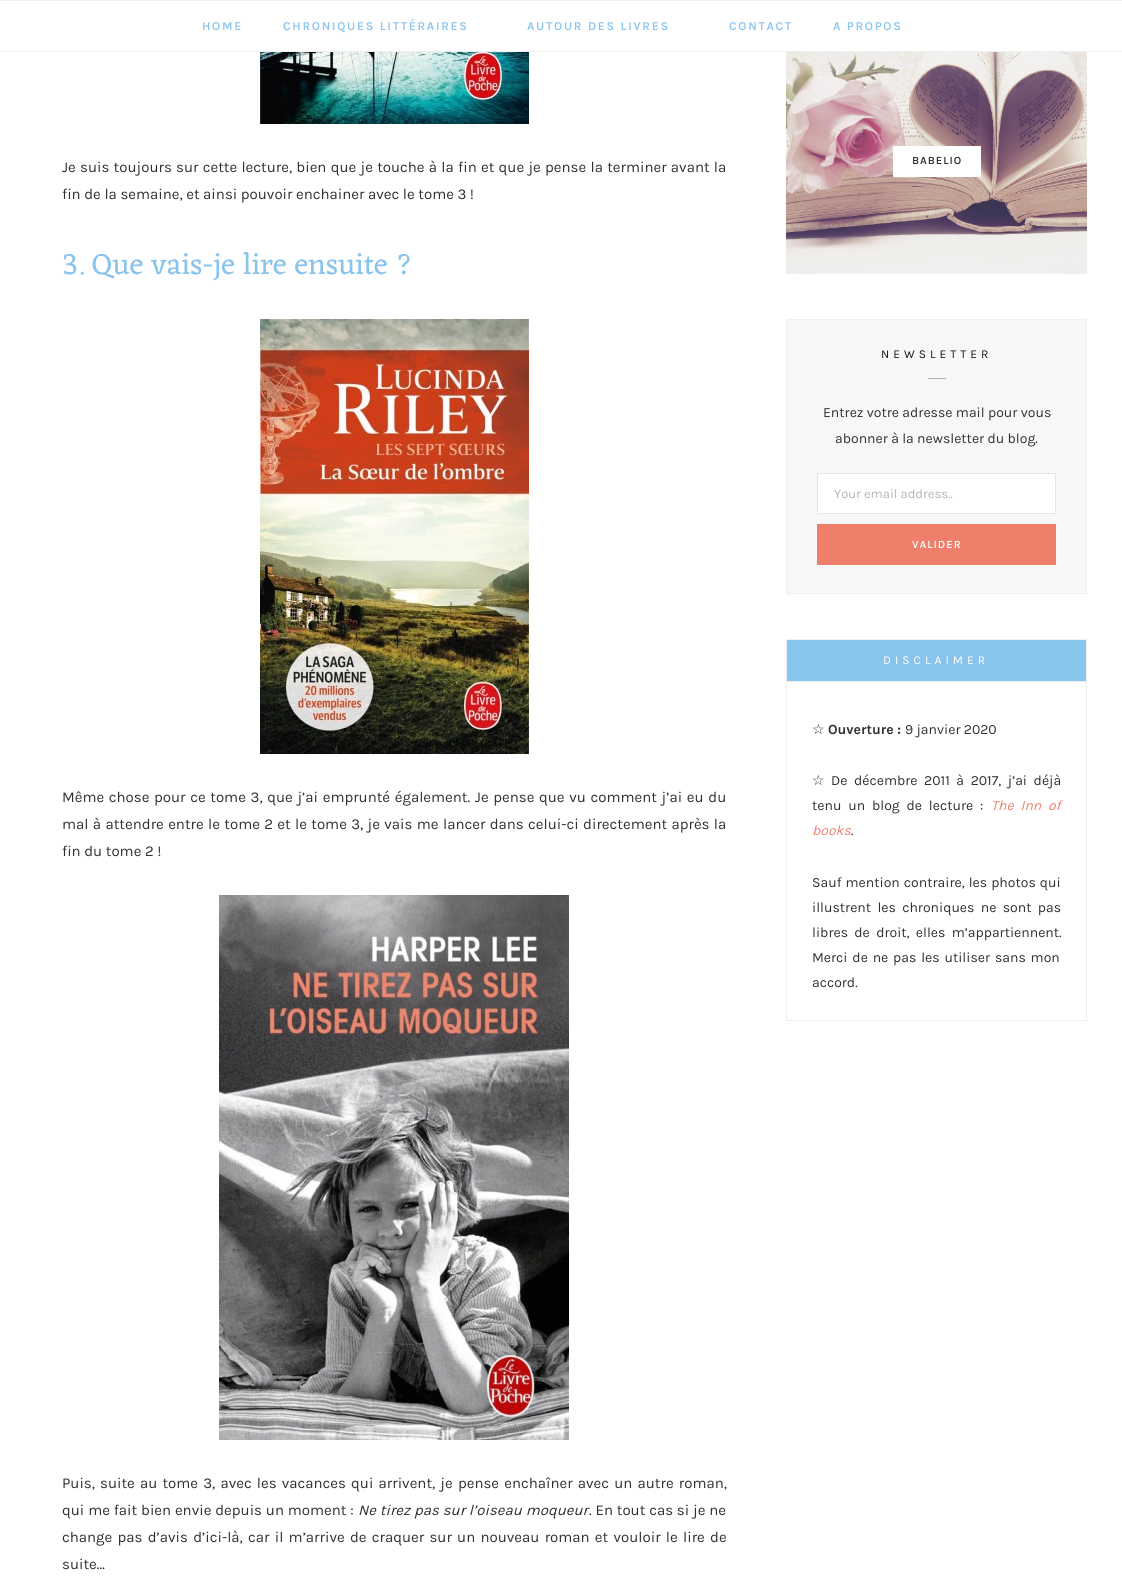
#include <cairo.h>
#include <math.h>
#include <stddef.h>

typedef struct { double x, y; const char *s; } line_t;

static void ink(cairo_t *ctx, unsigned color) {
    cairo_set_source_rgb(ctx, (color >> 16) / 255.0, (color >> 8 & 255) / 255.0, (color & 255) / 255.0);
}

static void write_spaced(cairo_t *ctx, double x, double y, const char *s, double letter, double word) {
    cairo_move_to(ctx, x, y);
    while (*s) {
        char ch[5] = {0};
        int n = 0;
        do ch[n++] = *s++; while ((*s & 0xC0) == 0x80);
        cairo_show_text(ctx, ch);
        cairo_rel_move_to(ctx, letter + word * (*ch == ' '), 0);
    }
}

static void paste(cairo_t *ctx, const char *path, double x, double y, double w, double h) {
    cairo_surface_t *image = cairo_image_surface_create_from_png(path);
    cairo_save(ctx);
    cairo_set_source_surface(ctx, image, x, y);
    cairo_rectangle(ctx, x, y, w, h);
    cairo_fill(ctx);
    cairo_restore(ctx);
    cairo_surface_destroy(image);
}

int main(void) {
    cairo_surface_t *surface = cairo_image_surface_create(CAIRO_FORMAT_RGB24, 1122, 1587);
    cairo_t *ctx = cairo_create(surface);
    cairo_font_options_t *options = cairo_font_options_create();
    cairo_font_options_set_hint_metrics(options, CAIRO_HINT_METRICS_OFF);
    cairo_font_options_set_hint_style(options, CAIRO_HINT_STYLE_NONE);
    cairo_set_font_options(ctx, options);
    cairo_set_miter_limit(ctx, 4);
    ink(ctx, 0xFFFFFF);
    cairo_paint(ctx);
    ink(ctx, 0xEFEFEF);
    cairo_rectangle(ctx, 0, 0, 1122, 1);
    cairo_fill(ctx);
    cairo_rectangle(ctx, 0, 51, 1122, 1);
    cairo_fill(ctx);
    cairo_select_font_face(ctx, "Karla SemiBold", CAIRO_FONT_SLANT_NORMAL, CAIRO_FONT_WEIGHT_NORMAL);
    cairo_set_font_size(ctx, 12.1);
    ink(ctx, 0x89C4EC);
    {
        static const line_t items[] = {
            {202, 30, "HOME"},
            {283, 30, "CHRONIQUES LITTÉRAIRES"},
            {527, 30, "AUTOUR DES LIVRES"},
            {729, 30, "CONTACT"},
            {833, 30, "A PROPOS"},
        };
        for (size_t i = 0; i < sizeof items / sizeof *items; i++) {
            write_spaced(ctx, items[i].x, items[i].y, items[i].s, 1.7, 0);
        }
    }
    paste(ctx, "media/1.png", 260, 52, 269, 72);
    cairo_select_font_face(ctx, "Karla", CAIRO_FONT_SLANT_NORMAL, CAIRO_FONT_WEIGHT_NORMAL);
    cairo_set_font_size(ctx, 15);
    ink(ctx, 0x303030);
    write_spaced(ctx, 62, 172, "Je suis toujours sur cette lecture, bien que je touche à la fin et que je pense la terminer avant la", 0, 0.7);
    cairo_move_to(ctx, 62, 199);
    cairo_show_text(ctx, "fin de la semaine, et ainsi pouvoir enchainer avec le tome 3 !");
    cairo_select_font_face(ctx, "Eczar", CAIRO_FONT_SLANT_NORMAL, CAIRO_FONT_WEIGHT_NORMAL);
    cairo_set_font_size(ctx, 30);
    ink(ctx, 0x89C4EC);
    cairo_move_to(ctx, 62, 274);
    cairo_show_text(ctx, "3. Que vais-je lire ensuite ?");
    paste(ctx, "media/2.png", 260, 319, 269, 435);
    cairo_select_font_face(ctx, "Karla", CAIRO_FONT_SLANT_NORMAL, CAIRO_FONT_WEIGHT_NORMAL);
    cairo_set_font_size(ctx, 15);
    ink(ctx, 0x303030);
    write_spaced(ctx, 62, 802, "Même chose pour ce tome 3, que j’ai emprunté également. Je pense que vu comment j’ai eu du", 0, 1.1);
    write_spaced(ctx, 62, 829, "mal à attendre entre le tome 2 et le tome 3, je vais me lancer dans celui-ci directement après la", 0, 0.8);
    cairo_move_to(ctx, 62, 856);
    cairo_show_text(ctx, "fin du tome 2 !");
    paste(ctx, "media/3.png", 219, 895, 350, 545);
    write_spaced(ctx, 62, 1488, "Puis, suite au tome 3, avec les vacances qui arrivent, je pense enchaîner avec un autre roman,", 0, 1.6);
    write_spaced(ctx, 62, 1515, "qui me fait bien envie depuis un moment :", 0, 0.25);
    cairo_select_font_face(ctx, "Karla", CAIRO_FONT_SLANT_ITALIC, CAIRO_FONT_WEIGHT_NORMAL);
    write_spaced(ctx, 358, 1515, "Ne tirez pas sur l’oiseau moqueur", 0, 0.25);
    cairo_select_font_face(ctx, "Karla", CAIRO_FONT_SLANT_NORMAL, CAIRO_FONT_WEIGHT_NORMAL);
    write_spaced(ctx, 589, 1515, ". En tout cas si je ne", 0, 0.25);
    write_spaced(ctx, 62, 1542, "change pas d’avis d’ici-là, car il m’arrive de craquer sur un nouveau roman et vouloir le lire de", 0, 1.7);
    cairo_move_to(ctx, 62, 1569);
    cairo_show_text(ctx, "suite…");
    paste(ctx, "media/4.png", 786, 52, 301, 222);
    ink(ctx, 0xFFFFFF);
    cairo_rectangle(ctx, 893, 146, 88, 31);
    cairo_fill(ctx);
    cairo_select_font_face(ctx, "Karla SemiBold", CAIRO_FONT_SLANT_NORMAL, CAIRO_FONT_WEIGHT_NORMAL);
    cairo_set_font_size(ctx, 11);
    ink(ctx, 0x303030);
    write_spaced(ctx, 912, 164, "BABELIO", 1, 0);
    ink(ctx, 0xF7F7F7);
    cairo_rectangle(ctx, 786.5, 319.5, 300, 274);
    cairo_fill_preserve(ctx);
    ink(ctx, 0xEFEFEF);
    cairo_set_line_width(ctx, 1);
    cairo_stroke(ctx);
    cairo_select_font_face(ctx, "Karla", CAIRO_FONT_SLANT_NORMAL, CAIRO_FONT_WEIGHT_NORMAL);
    cairo_set_font_size(ctx, 12);
    ink(ctx, 0x161616);
    write_spaced(ctx, 881, 358, "NEWSLETTER", 4, 0);
    ink(ctx, 0xB4B4B4);
    cairo_rectangle(ctx, 928, 378, 18, 1);
    cairo_fill(ctx);
    cairo_set_font_size(ctx, 14);
    ink(ctx, 0x303030);
    cairo_move_to(ctx, 823, 417);
    cairo_show_text(ctx, "Entrez votre adresse mail pour vous");
    cairo_move_to(ctx, 835, 443);
    cairo_show_text(ctx, "abonner à la newsletter du blog.");
    ink(ctx, 0xFFFFFF);
    cairo_rectangle(ctx, 817.5, 473.5, 238, 40);
    cairo_fill_preserve(ctx);
    ink(ctx, 0xE5E5E5);
    cairo_stroke(ctx);
    cairo_set_font_size(ctx, 13);
    ink(ctx, 0xB4B4B4);
    cairo_move_to(ctx, 834, 498);
    cairo_show_text(ctx, "Your email address..");
    ink(ctx, 0xEF7E6B);
    cairo_rectangle(ctx, 817, 524, 239, 41);
    cairo_fill(ctx);
    cairo_select_font_face(ctx, "Karla SemiBold", CAIRO_FONT_SLANT_NORMAL, CAIRO_FONT_WEIGHT_NORMAL);
    cairo_set_font_size(ctx, 11);
    ink(ctx, 0xFFFFFF);
    write_spaced(ctx, 912, 548, "VALIDER", 1, 0);
    cairo_rectangle(ctx, 786.5, 639.5, 300, 381);
    ink(ctx, 0xEFEFEF);
    cairo_stroke(ctx);
    ink(ctx, 0x89C4EC);
    cairo_rectangle(ctx, 786.5, 639.5, 300, 42);
    cairo_fill_preserve(ctx);
    ink(ctx, 0xEFEFEF);
    cairo_stroke(ctx);
    cairo_select_font_face(ctx, "Karla", CAIRO_FONT_SLANT_NORMAL, CAIRO_FONT_WEIGHT_NORMAL);
    cairo_set_font_size(ctx, 12);
    ink(ctx, 0xFFFFFF);
    write_spaced(ctx, 883, 664, "DISCLAIMER", 4, 0);
    cairo_select_font_face(ctx, "DejaVu Sans", CAIRO_FONT_SLANT_NORMAL, CAIRO_FONT_WEIGHT_NORMAL);
    cairo_set_font_size(ctx, 14);
    ink(ctx, 0x303030);
    cairo_move_to(ctx, 812, 734);
    cairo_show_text(ctx, "☆");
    cairo_select_font_face(ctx, "Karla", CAIRO_FONT_SLANT_NORMAL, CAIRO_FONT_WEIGHT_BOLD);
    cairo_move_to(ctx, 828, 734);
    cairo_show_text(ctx, "Ouverture :");
    cairo_select_font_face(ctx, "Karla", CAIRO_FONT_SLANT_NORMAL, CAIRO_FONT_WEIGHT_NORMAL);
    cairo_move_to(ctx, 905, 734);
    cairo_show_text(ctx, "9 janvier 2020");
    cairo_select_font_face(ctx, "DejaVu Sans", CAIRO_FONT_SLANT_NORMAL, CAIRO_FONT_WEIGHT_NORMAL);
    cairo_move_to(ctx, 812, 785);
    cairo_show_text(ctx, "☆");
    cairo_select_font_face(ctx, "Karla", CAIRO_FONT_SLANT_NORMAL, CAIRO_FONT_WEIGHT_NORMAL);
    write_spaced(ctx, 831, 785, "De décembre 2011 à 2017, j’ai déjà", 0, 3.25);
    write_spaced(ctx, 812, 810, "tenu un blog de lecture :", 0, 3.5);
    cairo_select_font_face(ctx, "Karla", CAIRO_FONT_SLANT_ITALIC, CAIRO_FONT_WEIGHT_NORMAL);
    ink(ctx, 0xEF7E6B);
    write_spaced(ctx, 991, 810, "The Inn of", 0, 3.5);
    cairo_move_to(ctx, 812, 835);
    cairo_show_text(ctx, "books");
    cairo_select_font_face(ctx, "Karla", CAIRO_FONT_SLANT_NORMAL, CAIRO_FONT_WEIGHT_NORMAL);
    ink(ctx, 0x303030);
    cairo_move_to(ctx, 851, 835);
    cairo_show_text(ctx, ".");
    write_spaced(ctx, 812, 887, "Sauf mention contraire, les photos qui", 0, 0.75);
    write_spaced(ctx, 812, 912, "illustrent les chroniques ne sont pas", 0, 3);
    write_spaced(ctx, 812, 937, "libres de droit, elles m’appartiennent.", 0, 3);
    write_spaced(ctx, 812, 962, "Merci de ne pas les utiliser sans mon", 0, 1.5);
    cairo_move_to(ctx, 812, 987);
    cairo_show_text(ctx, "accord.");
    cairo_surface_write_to_png(surface, "image.png");
    cairo_font_options_destroy(options);
    cairo_destroy(ctx);
    cairo_surface_destroy(surface);
    return 0;
}
